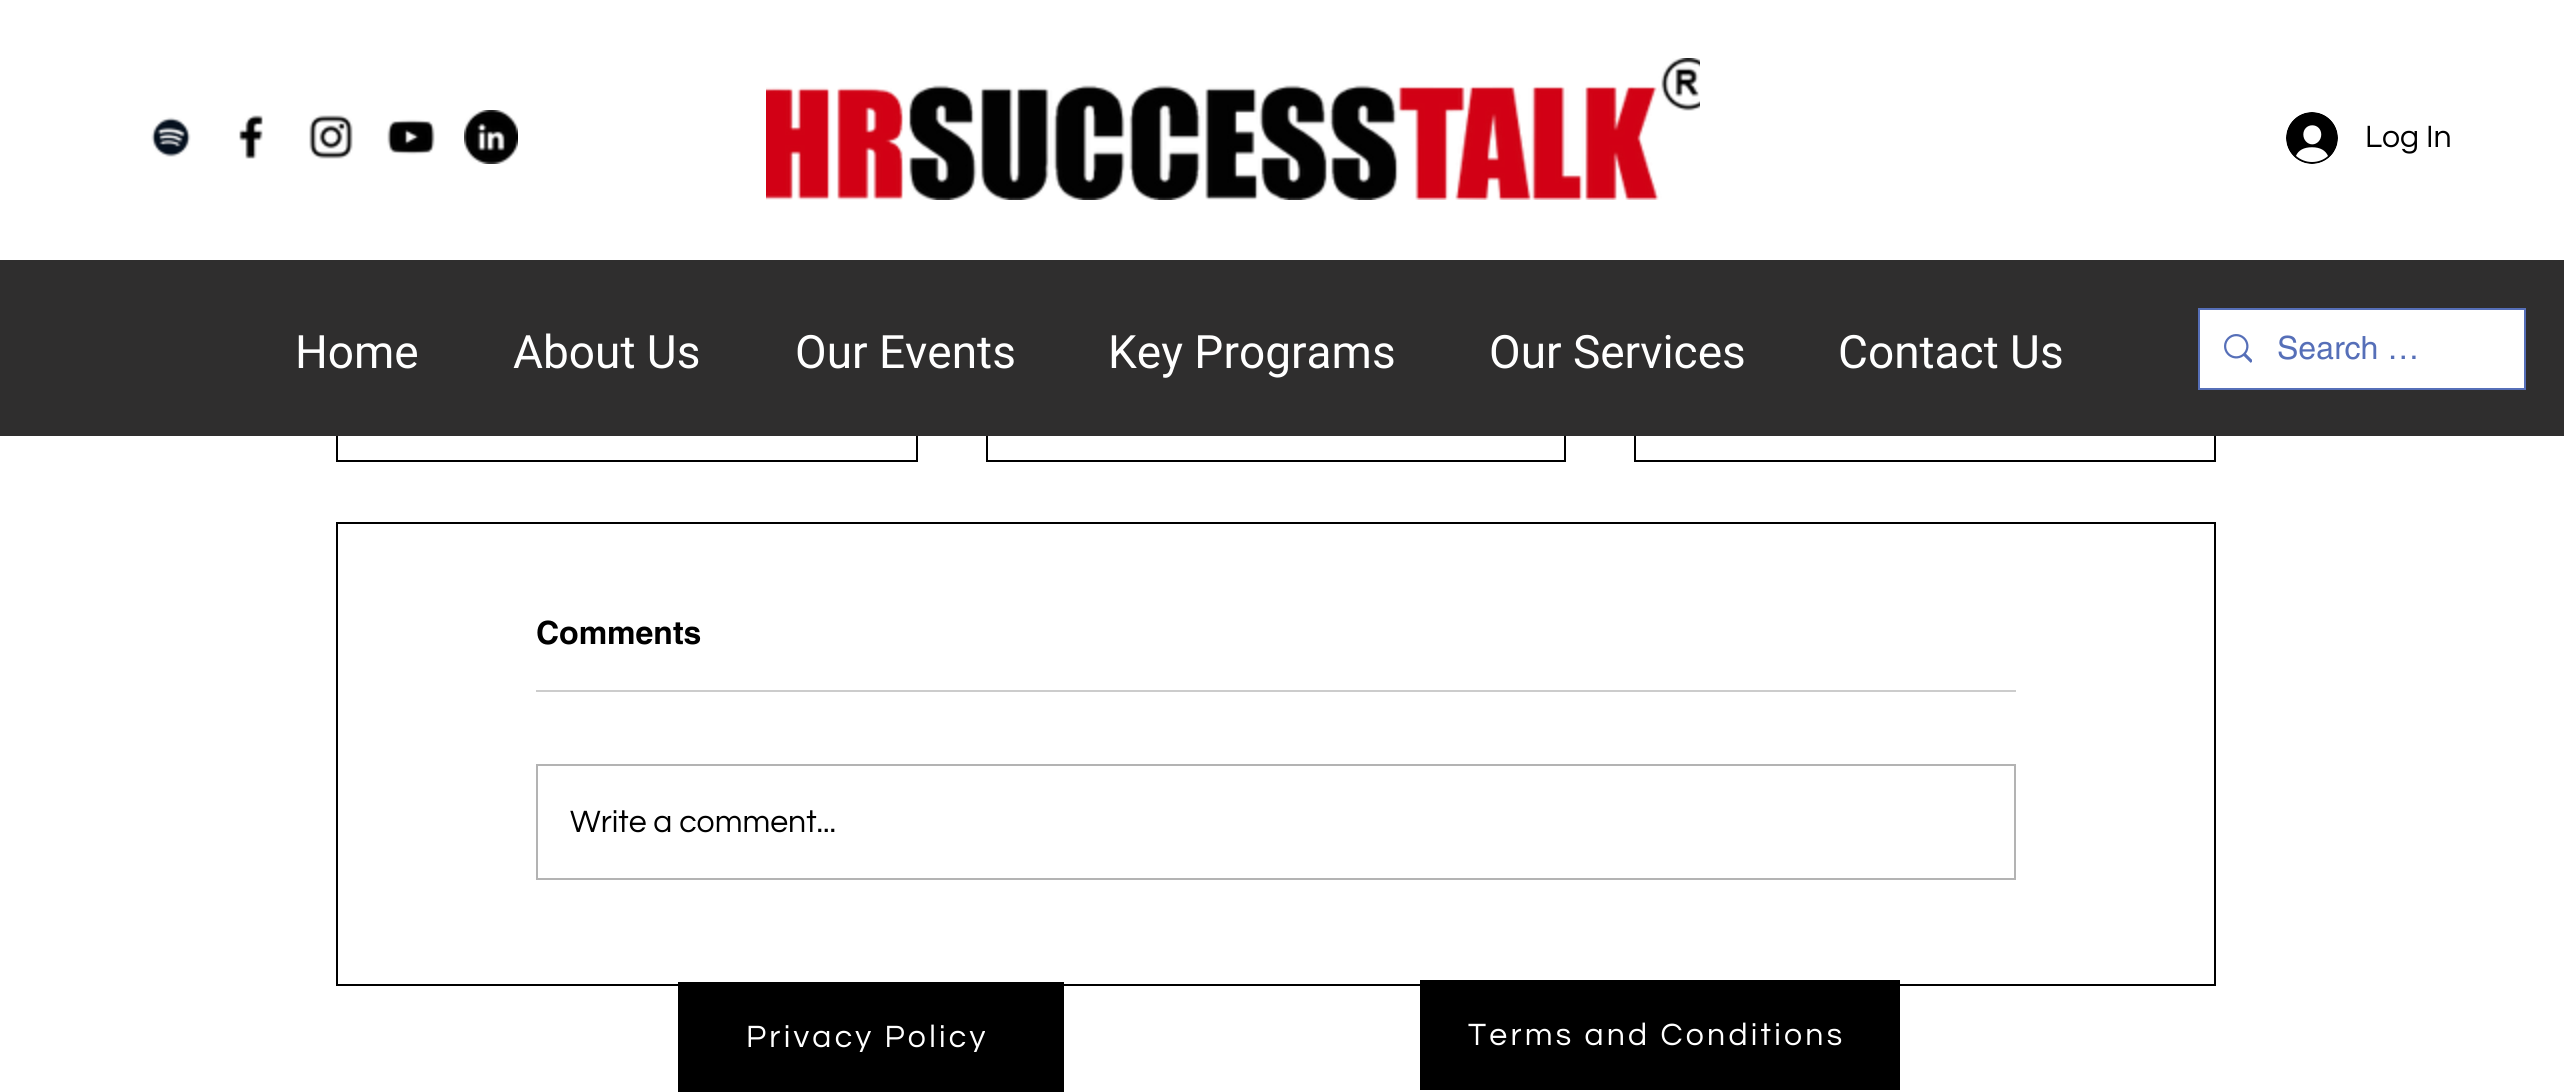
#include <cairo.h>
#include <math.h>
#include <stddef.h>

typedef struct { double x, y; const char *s; } line_t;

static void ink(cairo_t *ctx, unsigned color) {
    cairo_set_source_rgb(ctx, (color >> 16) / 255.0, (color >> 8 & 255) / 255.0, (color & 255) / 255.0);
}

static void write_spaced(cairo_t *ctx, double x, double y, const char *s, double letter, double word) {
    cairo_move_to(ctx, x, y);
    while (*s) {
        char ch[5] = {0};
        int n = 0;
        do ch[n++] = *s++; while ((*s & 0xC0) == 0x80);
        cairo_show_text(ctx, ch);
        cairo_rel_move_to(ctx, letter + word * (*ch == ' '), 0);
    }
}

static void paste(cairo_t *ctx, const char *path, double x, double y, double w, double h) {
    cairo_surface_t *image = cairo_image_surface_create_from_png(path);
    cairo_save(ctx);
    cairo_set_source_surface(ctx, image, x, y);
    cairo_rectangle(ctx, x, y, w, h);
    cairo_fill(ctx);
    cairo_restore(ctx);
    cairo_surface_destroy(image);
}

int main(void) {
    cairo_surface_t *surface = cairo_image_surface_create(CAIRO_FORMAT_RGB24, 2564, 1092);
    cairo_t *ctx = cairo_create(surface);
    cairo_font_options_t *options = cairo_font_options_create();
    cairo_font_options_set_hint_metrics(options, CAIRO_HINT_METRICS_OFF);
    cairo_font_options_set_hint_style(options, CAIRO_HINT_STYLE_NONE);
    cairo_set_font_options(ctx, options);
    cairo_set_miter_limit(ctx, 4);
    ink(ctx, 0xFFFFFF);
    cairo_paint(ctx);
    cairo_rectangle(ctx, 337, -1, 580, 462);
    ink(ctx, 0x000000);
    cairo_stroke(ctx);
    cairo_rectangle(ctx, 987, -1, 578, 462);
    cairo_stroke(ctx);
    cairo_rectangle(ctx, 1635, -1, 580, 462);
    cairo_stroke(ctx);
    ink(ctx, 0xFFFFFF);
    cairo_rectangle(ctx, 336, 0, 1300, 260);
    cairo_fill(ctx);
    paste(ctx, "media/1.png", 151, 117, 40, 40);
    paste(ctx, "media/2.png", 239, 115, 24, 44);
    paste(ctx, "media/3.png", 309, 115, 44, 44);
    paste(ctx, "media/4.png", 387, 119, 48, 36);
    paste(ctx, "media/5.png", 464, 110, 54, 54);
    paste(ctx, "media/6.png", 766, 58, 934, 142);
    cairo_rectangle(ctx, 2214, 0, 2, 260);
    cairo_fill(ctx);
    paste(ctx, "media/7.png", 2286, 112, 52, 52);
    cairo_select_font_face(ctx, "Questrial", CAIRO_FONT_SLANT_NORMAL, CAIRO_FONT_WEIGHT_NORMAL);
    cairo_set_font_size(ctx, 32);
    ink(ctx, 0x000000);
    cairo_move_to(ctx, 2365, 147);
    cairo_show_text(ctx, "Log In");
    ink(ctx, 0x2F2E2E);
    cairo_rectangle(ctx, 0, 260, 2564, 176);
    cairo_fill(ctx);
    cairo_select_font_face(ctx, "Roboto", CAIRO_FONT_SLANT_NORMAL, CAIRO_FONT_WEIGHT_NORMAL);
    cairo_set_font_size(ctx, 46);
    ink(ctx, 0xFFFFFF);
    {
        static const line_t items[] = {
            {295, 368, "Home"},
            {513, 368, "About Us"},
            {795, 368, "Our Events"},
            {1108, 368, "Key Programs"},
            {1489, 368, "Our Services"},
            {1838, 368, "Contact Us"},
        };
        for (size_t i = 0; i < sizeof items / sizeof *items; i++) {
            cairo_move_to(ctx, items[i].x, items[i].y);
            cairo_show_text(ctx, items[i].s);
        }
    }
    cairo_rectangle(ctx, 2199, 309, 326, 80);
    ink(ctx, 0x566FB8);
    cairo_stroke(ctx);
    ink(ctx, 0xFFFFFF);
    cairo_rectangle(ctx, 2200, 310, 324, 78);
    cairo_fill(ctx);
    paste(ctx, "media/8.png", 2224, 334, 28, 29);
    cairo_select_font_face(ctx, "helvetica", CAIRO_FONT_SLANT_NORMAL, CAIRO_FONT_WEIGHT_NORMAL);
    cairo_set_font_size(ctx, 32);
    ink(ctx, 0x566FB8);
    cairo_move_to(ctx, 2277, 359);
    cairo_show_text(ctx, "Search …");
    cairo_rectangle(ctx, 337, 523, 1878, 462);
    ink(ctx, 0x000000);
    cairo_stroke(ctx);
    cairo_select_font_face(ctx, "helvetica", CAIRO_FONT_SLANT_NORMAL, CAIRO_FONT_WEIGHT_BOLD);
    cairo_move_to(ctx, 536, 644);
    cairo_show_text(ctx, "Comments");
    ink(ctx, 0xCCCCCC);
    cairo_rectangle(ctx, 536, 690, 1480, 2);
    cairo_fill(ctx);
    cairo_rectangle(ctx, 537, 765, 1478, 114);
    ink(ctx, 0xB3B3B3);
    cairo_stroke(ctx);
    cairo_select_font_face(ctx, "Questrial", CAIRO_FONT_SLANT_NORMAL, CAIRO_FONT_WEIGHT_NORMAL);
    ink(ctx, 0x000000);
    cairo_move_to(ctx, 570, 832);
    cairo_show_text(ctx, "Write a comment...");
    cairo_rectangle(ctx, 678, 982, 386, 110);
    cairo_fill(ctx);
    cairo_save(ctx);
    cairo_rectangle(ctx, 746, 1020, 242, 32);
    cairo_clip(ctx);
    ink(ctx, 0xFFFFFF);
    write_spaced(ctx, 746, 1047, "Privacy Policy", 3.25, 0);
    cairo_restore(ctx);
    cairo_rectangle(ctx, 1420, 980, 480, 110);
    cairo_fill(ctx);
    ink(ctx, 0xFFFFFF);
    write_spaced(ctx, 1468, 1045, "Terms and Conditions", 3.25, 0);
    cairo_surface_write_to_png(surface, "image.png");
    cairo_font_options_destroy(options);
    cairo_destroy(ctx);
    cairo_surface_destroy(surface);
    return 0;
}
